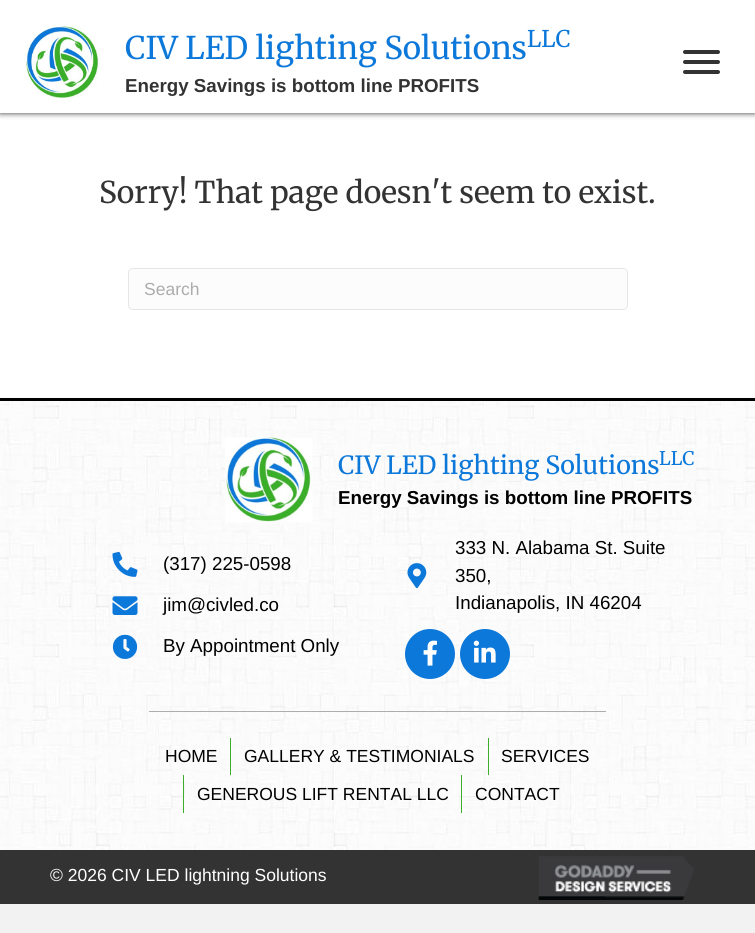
#include <cairo.h>
#include <math.h>
#include <stddef.h>

typedef struct { double x, y; const char *s; } line_t;

static void ink(cairo_t *ctx, unsigned color) {
    cairo_set_source_rgb(ctx, (color >> 16) / 255.0, (color >> 8 & 255) / 255.0, (color & 255) / 255.0);
}

static void round_path(cairo_t *ctx, double x, double y, double w, double h, double r) {
    cairo_new_sub_path(ctx);
    cairo_arc(ctx, x + w - r, y + h - r, r, 0, M_PI / 2);
    cairo_arc(ctx, x + r, y + h - r, r, M_PI / 2, M_PI);
    cairo_arc(ctx, x + r, y + r, r, M_PI, 1.5 * M_PI);
    cairo_arc(ctx, x + w - r, y + r, r, 1.5 * M_PI, 2 * M_PI);
    cairo_close_path(ctx);
}

static void blur_box(cairo_t *ctx, double x, double y, double w, double h, double r, double blur, double alpha) {
    cairo_push_group_with_content(ctx, CAIRO_CONTENT_ALPHA);
    cairo_set_operator(ctx, CAIRO_OPERATOR_SOURCE);
    for (int i = 15; i >= -15 && fmin(w, h) + blur * i / 3 > 0; i -= 2) {
        double e = blur * i / 6;
        cairo_set_source_rgba(ctx, 0, 0, 0, alpha * erfc((i - 1) / 8.5) / 2);
        round_path(ctx, x - e, y - e, w + 2 * e, h + 2 * e, fmax(0, fmin(r + e + blur * .6, fmin(w, h) / 2 + e)));
        cairo_fill(ctx);
    }
    cairo_pattern_t *soft = cairo_pop_group(ctx);
    cairo_mask(ctx, soft);
    cairo_pattern_destroy(soft);
}

static void paste(cairo_t *ctx, const char *path, double x, double y, double w, double h) {
    cairo_surface_t *image = cairo_image_surface_create_from_png(path);
    cairo_save(ctx);
    cairo_set_source_surface(ctx, image, x, y);
    cairo_rectangle(ctx, x, y, w, h);
    cairo_fill(ctx);
    cairo_restore(ctx);
    cairo_surface_destroy(image);
}

int main(void) {
    cairo_surface_t *surface = cairo_image_surface_create(CAIRO_FORMAT_RGB24, 755, 933);
    cairo_t *ctx = cairo_create(surface);
    cairo_font_options_t *options = cairo_font_options_create();
    cairo_font_options_set_hint_metrics(options, CAIRO_HINT_METRICS_OFF);
    cairo_font_options_set_hint_style(options, CAIRO_HINT_STYLE_NONE);
    cairo_set_font_options(ctx, options);
    cairo_set_miter_limit(ctx, 4);
    ink(ctx, 0xF2F2F2);
    cairo_paint(ctx);
    ink(ctx, 0xFFFFFF);
    cairo_rectangle(ctx, 0, 113, 755, 285);
    cairo_fill(ctx);
    ink(ctx, 0x333333);
    blur_box(ctx, 0, 0, 755, 113, 0, 3, 1);
    ink(ctx, 0xFFFFFF);
    cairo_rectangle(ctx, 0, 0, 755, 113);
    cairo_fill(ctx);
    paste(ctx, "media/1.png", 25, 26, 75, 72);
    cairo_select_font_face(ctx, "Merriweather Light", CAIRO_FONT_SLANT_NORMAL, CAIRO_FONT_WEIGHT_NORMAL);
    cairo_set_font_size(ctx, 31.25);
    ink(ctx, 0x0C78DA);
    cairo_move_to(ctx, 125, 59);
    cairo_show_text(ctx, "CIV LED lighting Solutions");
    cairo_set_font_size(ctx, 23);
    cairo_move_to(ctx, 527, 47);
    cairo_show_text(ctx, "LLC");
    cairo_select_font_face(ctx, "Liberation Sans", CAIRO_FONT_SLANT_NORMAL, CAIRO_FONT_WEIGHT_BOLD);
    cairo_set_font_size(ctx, 18.75);
    ink(ctx, 0x333333);
    cairo_move_to(ctx, 125, 92);
    cairo_show_text(ctx, "Energy Savings is bottom line PROFITS");
    round_path(ctx, 683, 60, 37, 4, 2);
    cairo_fill(ctx);
    round_path(ctx, 683, 50, 37, 4, 2);
    cairo_fill(ctx);
    round_path(ctx, 683, 70, 37, 4, 2);
    cairo_fill(ctx);
    cairo_select_font_face(ctx, "Merriweather Light", CAIRO_FONT_SLANT_NORMAL, CAIRO_FONT_WEIGHT_NORMAL);
    cairo_set_font_size(ctx, 30);
    cairo_move_to(ctx, 99, 203);
    cairo_show_text(ctx, "Sorry! That page doesn't seem to exist.");
    ink(ctx, 0xFCFCFC);
    round_path(ctx, 128.5, 268.5, 499, 41, 4.5);
    cairo_fill_preserve(ctx);
    ink(ctx, 0xE6E6E6);
    cairo_set_line_width(ctx, 1);
    cairo_stroke(ctx);
    cairo_select_font_face(ctx, "Liberation Sans", CAIRO_FONT_SLANT_NORMAL, CAIRO_FONT_WEIGHT_NORMAL);
    cairo_set_font_size(ctx, 17.5);
    ink(ctx, 0xACACAC);
    cairo_move_to(ctx, 144, 295);
    cairo_show_text(ctx, "Search");
    paste(ctx, "media/2.png", 0, 397, 755, 453);
    ink(ctx, 0x000000);
    cairo_rectangle(ctx, 0, 398, 755, 3);
    cairo_fill(ctx);
    paste(ctx, "media/3.png", 225, 437, 88, 86);
    cairo_select_font_face(ctx, "Merriweather Light", CAIRO_FONT_SLANT_NORMAL, CAIRO_FONT_WEIGHT_NORMAL);
    cairo_set_font_size(ctx, 25);
    ink(ctx, 0x0C78DA);
    cairo_move_to(ctx, 338, 474);
    cairo_show_text(ctx, "CIV LED lighting Solutions");
    cairo_set_font_size(ctx, 18.75);
    cairo_move_to(ctx, 659, 465);
    cairo_show_text(ctx, "LLC");
    cairo_select_font_face(ctx, "Liberation Sans", CAIRO_FONT_SLANT_NORMAL, CAIRO_FONT_WEIGHT_BOLD);
    ink(ctx, 0x000000);
    cairo_move_to(ctx, 338, 504);
    cairo_show_text(ctx, "Energy Savings is bottom line PROFITS");
    paste(ctx, "media/4.png", 112, 551, 26, 26);
    cairo_select_font_face(ctx, "Liberation Sans", CAIRO_FONT_SLANT_NORMAL, CAIRO_FONT_WEIGHT_NORMAL);
    cairo_move_to(ctx, 163, 570);
    cairo_show_text(ctx, "(317) 225-0598");
    paste(ctx, "media/5.png", 112, 596, 26, 19);
    cairo_move_to(ctx, 163, 611);
    cairo_show_text(ctx, "jim@civled.co");
    paste(ctx, "media/6.png", 112, 634, 26, 25);
    cairo_move_to(ctx, 163, 652);
    cairo_show_text(ctx, "By Appointment Only");
    paste(ctx, "media/7.png", 407, 563, 20, 26);
    {
        static const line_t items[] = {
            {455, 554, "333 N. Alabama St. Suite"},
            {455, 582, "350,"},
            {455, 609, "Indianapolis, IN 46204"},
        };
        for (size_t i = 0; i < sizeof items / sizeof *items; i++) {
            cairo_move_to(ctx, items[i].x, items[i].y);
            cairo_show_text(ctx, items[i].s);
        }
    }
    ink(ctx, 0x0C78DA);
    cairo_new_path(ctx);
    cairo_arc(ctx, 430, 654, 25, 0, 2 * M_PI);
    cairo_fill(ctx);
    paste(ctx, "media/8.png", 423, 640, 14, 26);
    cairo_arc(ctx, 485, 654, 25, 0, 2 * M_PI);
    cairo_fill(ctx);
    paste(ctx, "media/9.png", 473, 640, 23, 23);
    ink(ctx, 0xADADAD);
    cairo_rectangle(ctx, 149, 711, 457, 1);
    cairo_fill(ctx);
    cairo_set_font_size(ctx, 17.5);
    ink(ctx, 0x000000);
    cairo_move_to(ctx, 165, 762);
    cairo_show_text(ctx, "HOME");
    ink(ctx, 0x3BAF2A);
    cairo_rectangle(ctx, 230, 738, 1, 37);
    cairo_fill(ctx);
    ink(ctx, 0x000000);
    cairo_move_to(ctx, 244, 762);
    cairo_show_text(ctx, "GALLERY & TESTIMONIALS");
    ink(ctx, 0x3BAF2A);
    cairo_rectangle(ctx, 488, 738, 1, 37);
    cairo_fill(ctx);
    ink(ctx, 0x000000);
    cairo_move_to(ctx, 501, 762);
    cairo_show_text(ctx, "SERVICES");
    ink(ctx, 0x3BAF2A);
    cairo_rectangle(ctx, 183, 775, 1, 38);
    cairo_fill(ctx);
    ink(ctx, 0x000000);
    cairo_move_to(ctx, 197, 800);
    cairo_show_text(ctx, "GENEROUS LIFT RENTAL LLC");
    ink(ctx, 0x3BAF2A);
    cairo_rectangle(ctx, 461, 775, 1, 38);
    cairo_fill(ctx);
    ink(ctx, 0x000000);
    cairo_move_to(ctx, 475, 800);
    cairo_show_text(ctx, "CONTACT");
    ink(ctx, 0x333333);
    cairo_rectangle(ctx, 0, 850, 755, 54);
    cairo_fill(ctx);
    ink(ctx, 0xFFFFFF);
    cairo_move_to(ctx, 50, 881);
    cairo_show_text(ctx, "© 2026 CIV LED lightning Solutions");
    paste(ctx, "media/10.png", 538, 856, 156, 44);
    cairo_surface_write_to_png(surface, "image.png");
    cairo_font_options_destroy(options);
    cairo_destroy(ctx);
    cairo_surface_destroy(surface);
    return 0;
}
